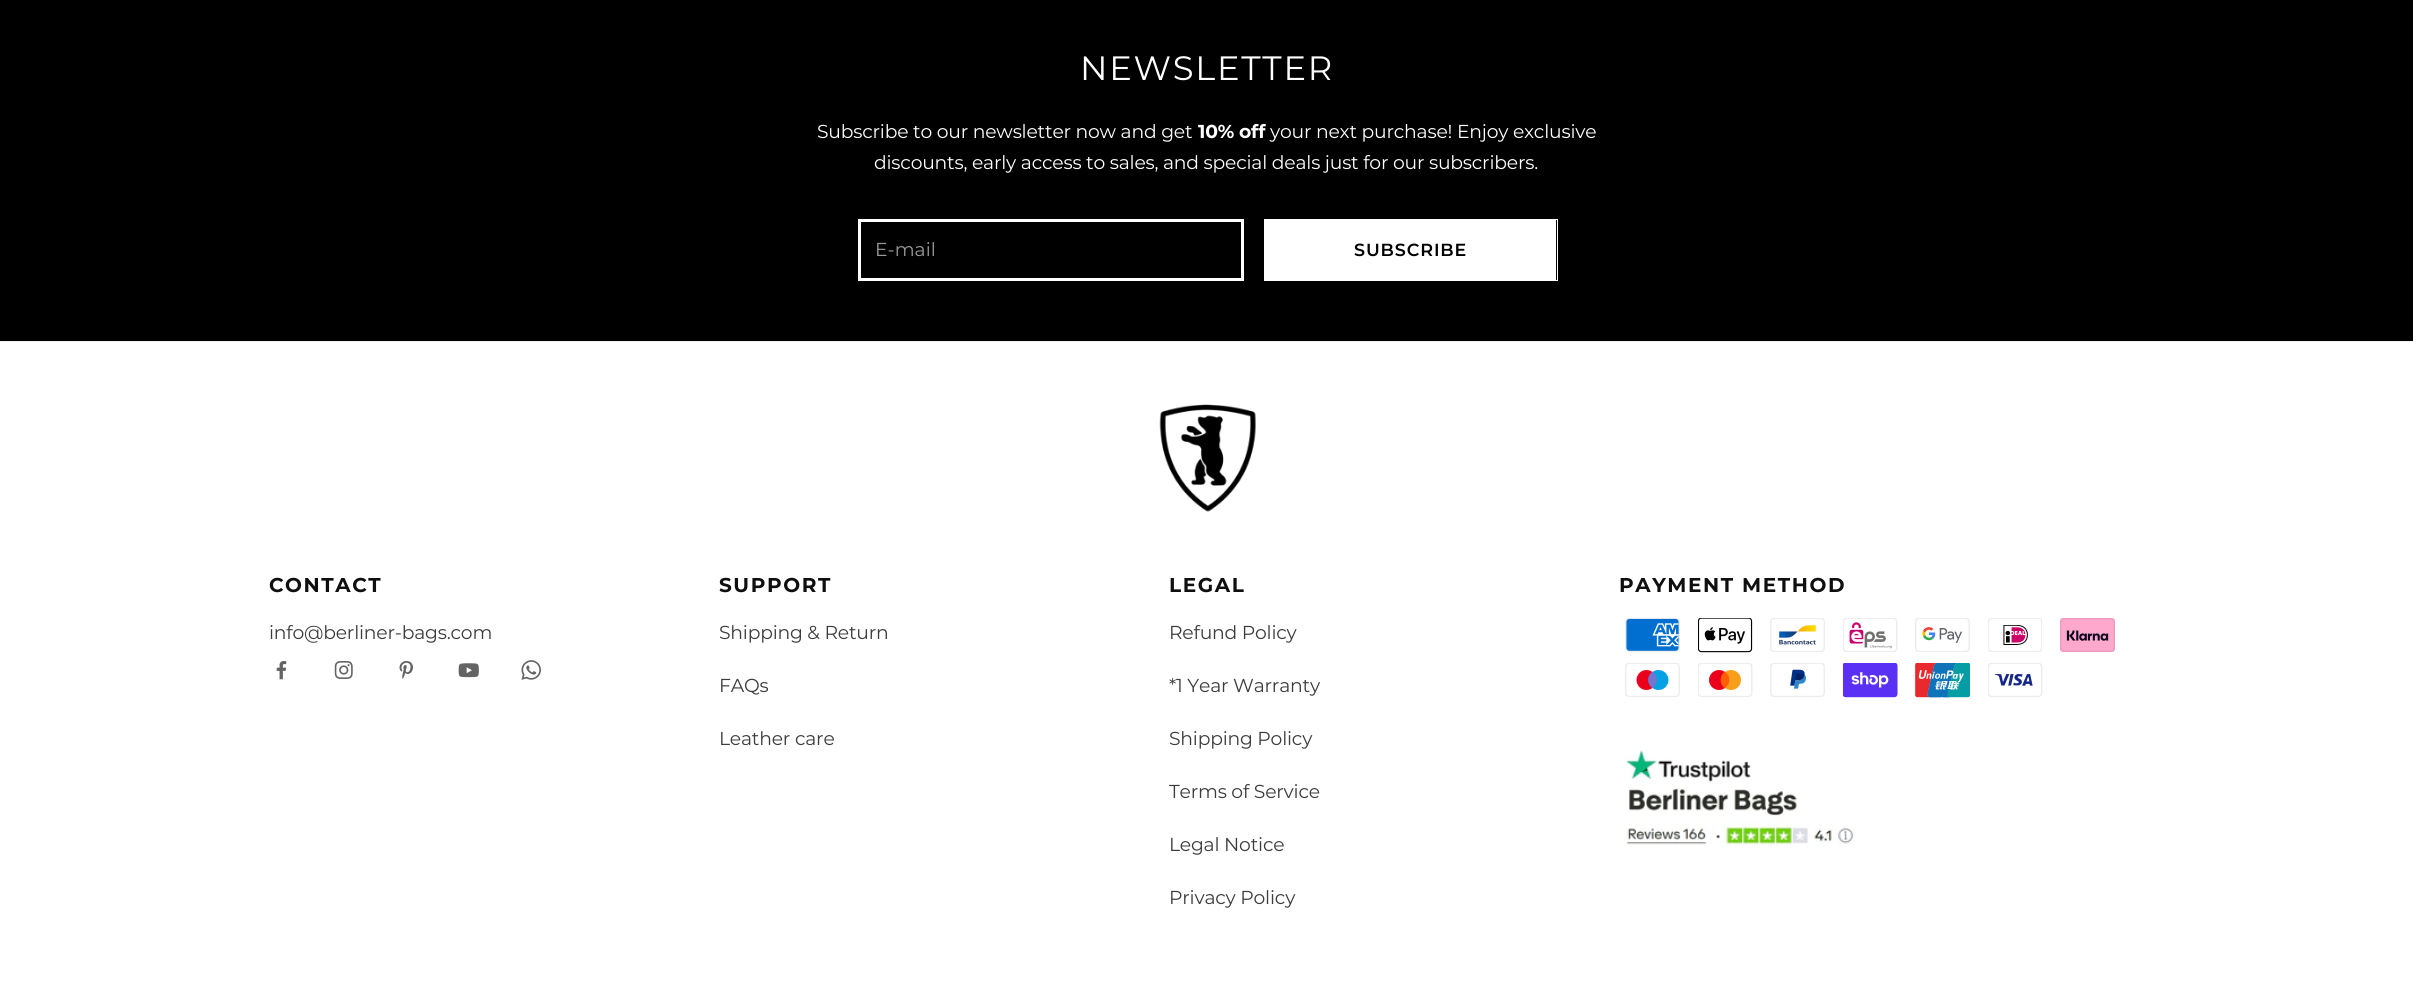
#include <cairo.h>
#include <math.h>
#include <stddef.h>

typedef struct { double x, y; const char *s; } line_t;

static void ink(cairo_t *ctx, unsigned color) {
    cairo_set_source_rgb(ctx, (color >> 16) / 255.0, (color >> 8 & 255) / 255.0, (color & 255) / 255.0);
}

static void write_spaced(cairo_t *ctx, double x, double y, const char *s, double letter, double word) {
    cairo_move_to(ctx, x, y);
    while (*s) {
        char ch[5] = {0};
        int n = 0;
        do ch[n++] = *s++; while ((*s & 0xC0) == 0x80);
        cairo_show_text(ctx, ch);
        cairo_rel_move_to(ctx, letter + word * (*ch == ' '), 0);
    }
}

static void paste(cairo_t *ctx, const char *path, double x, double y, double w, double h) {
    cairo_surface_t *image = cairo_image_surface_create_from_png(path);
    cairo_save(ctx);
    cairo_set_source_surface(ctx, image, x, y);
    cairo_rectangle(ctx, x, y, w, h);
    cairo_fill(ctx);
    cairo_restore(ctx);
    cairo_surface_destroy(image);
}

int main(void) {
    cairo_surface_t *surface = cairo_image_surface_create(CAIRO_FORMAT_RGB24, 2413, 986);
    cairo_t *ctx = cairo_create(surface);
    cairo_font_options_t *options = cairo_font_options_create();
    cairo_font_options_set_hint_metrics(options, CAIRO_HINT_METRICS_OFF);
    cairo_font_options_set_hint_style(options, CAIRO_HINT_STYLE_NONE);
    cairo_set_font_options(ctx, options);
    cairo_set_miter_limit(ctx, 4);
    ink(ctx, 0xFFFFFF);
    cairo_paint(ctx);
    ink(ctx, 0x000000);
    cairo_rectangle(ctx, 0, 0, 2413, 341);
    cairo_fill(ctx);
    cairo_select_font_face(ctx, "Montserrat", CAIRO_FONT_SLANT_NORMAL, CAIRO_FONT_WEIGHT_NORMAL);
    cairo_set_font_size(ctx, 33.75);
    ink(ctx, 0xFFFFFF);
    write_spaced(ctx, 1080, 80, "NEWSLETTER", 1.75, 0);
    cairo_set_font_size(ctx, 18.75);
    write_spaced(ctx, 817, 138, "Subscribe to our newsletter now and get", -0.2, 0);
    cairo_select_font_face(ctx, "Montserrat", CAIRO_FONT_SLANT_NORMAL, CAIRO_FONT_WEIGHT_BOLD);
    write_spaced(ctx, 1198, 138, "10% off", -0.2, 0);
    cairo_select_font_face(ctx, "Montserrat", CAIRO_FONT_SLANT_NORMAL, CAIRO_FONT_WEIGHT_NORMAL);
    write_spaced(ctx, 1270, 138, "your next purchase! Enjoy exclusive", -0.2, 0);
    write_spaced(ctx, 874, 169, "discounts, early access to sales, and special deals just for our subscribers.", -0.2, 0);
    cairo_rectangle(ctx, 859.5, 220.5, 383, 59);
    cairo_set_line_width(ctx, 3);
    cairo_stroke(ctx);
    ink(ctx, 0x999999);
    cairo_move_to(ctx, 875, 256);
    cairo_show_text(ctx, "E-mail");
    ink(ctx, 0xFFFFFF);
    cairo_rectangle(ctx, 1265, 220, 291, 60);
    cairo_fill(ctx);
    cairo_rectangle(ctx, 1264.5, 219.5, 293, 61);
    cairo_set_line_width(ctx, 1);
    cairo_stroke(ctx);
    cairo_select_font_face(ctx, "Montserrat SemiBold", CAIRO_FONT_SLANT_NORMAL, CAIRO_FONT_WEIGHT_NORMAL);
    cairo_set_font_size(ctx, 17.5);
    ink(ctx, 0x000000);
    write_spaced(ctx, 1354, 256, "SUBSCRIBE", 0.9, 0);
    ink(ctx, 0xEEEEEE);
    cairo_rectangle(ctx, 0, 341, 2413, 1);
    cairo_fill(ctx);
    paste(ctx, "media/1.png", 1159, 404, 97, 108);
    cairo_select_font_face(ctx, "Montserrat", CAIRO_FONT_SLANT_NORMAL, CAIRO_FONT_WEIGHT_BOLD);
    cairo_set_font_size(ctx, 20);
    ink(ctx, 0x0F0F0F);
    write_spaced(ctx, 269, 592, "CONTACT", 1.6, 0);
    cairo_select_font_face(ctx, "Montserrat", CAIRO_FONT_SLANT_NORMAL, CAIRO_FONT_WEIGHT_NORMAL);
    cairo_set_font_size(ctx, 18.75);
    ink(ctx, 0x3C3C3C);
    write_spaced(ctx, 269, 639, "info@berliner-bags.com", -0.2, 0);
    paste(ctx, "media/2.png", 276, 661, 11, 19);
    paste(ctx, "media/3.png", 334, 661, 19, 18);
    paste(ctx, "media/4.png", 399, 661, 14, 18);
    paste(ctx, "media/5.png", 458, 663, 21, 15);
    paste(ctx, "media/6.png", 521, 660, 20, 20);
    cairo_select_font_face(ctx, "Montserrat", CAIRO_FONT_SLANT_NORMAL, CAIRO_FONT_WEIGHT_BOLD);
    cairo_set_font_size(ctx, 20);
    ink(ctx, 0x0F0F0F);
    write_spaced(ctx, 719, 592, "SUPPORT", 1.6, 0);
    cairo_select_font_face(ctx, "Montserrat", CAIRO_FONT_SLANT_NORMAL, CAIRO_FONT_WEIGHT_NORMAL);
    cairo_set_font_size(ctx, 18.75);
    ink(ctx, 0x3C3C3C);
    {
        static const line_t items[] = {
            {719, 639, "Shipping & Return"},
            {719, 692, "FAQs"},
            {719, 745, "Leather care"},
        };
        for (size_t i = 0; i < sizeof items / sizeof *items; i++) {
            write_spaced(ctx, items[i].x, items[i].y, items[i].s, -0.2, 0);
        }
    }
    cairo_select_font_face(ctx, "Montserrat", CAIRO_FONT_SLANT_NORMAL, CAIRO_FONT_WEIGHT_BOLD);
    cairo_set_font_size(ctx, 20);
    ink(ctx, 0x0F0F0F);
    write_spaced(ctx, 1169, 592, "LEGAL", 1.6, 0);
    cairo_select_font_face(ctx, "Montserrat", CAIRO_FONT_SLANT_NORMAL, CAIRO_FONT_WEIGHT_NORMAL);
    cairo_set_font_size(ctx, 18.75);
    ink(ctx, 0x3C3C3C);
    {
        static const line_t items[] = {
            {1169, 639, "Refund Policy"},
            {1169, 692, "*1 Year Warranty"},
            {1169, 745, "Shipping Policy"},
            {1169, 798, "Terms of Service"},
            {1169, 851, "Legal Notice"},
            {1169, 904, "Privacy Policy"},
        };
        for (size_t i = 0; i < sizeof items / sizeof *items; i++) {
            write_spaced(ctx, items[i].x, items[i].y, items[i].s, -0.2, 0);
        }
    }
    cairo_select_font_face(ctx, "Montserrat", CAIRO_FONT_SLANT_NORMAL, CAIRO_FONT_WEIGHT_BOLD);
    cairo_set_font_size(ctx, 20);
    ink(ctx, 0x0F0F0F);
    write_spaced(ctx, 1619, 592, "PAYMENT METHOD", 1.6, 0);
    paste(ctx, "media/7.png", 1625, 618, 55, 34);
    paste(ctx, "media/8.png", 1698, 618, 55, 35);
    paste(ctx, "media/9.png", 1770, 618, 55, 34);
    paste(ctx, "media/10.png", 1843, 618, 55, 34);
    paste(ctx, "media/11.png", 1915, 618, 55, 34);
    paste(ctx, "media/12.png", 1988, 618, 54, 34);
    paste(ctx, "media/13.png", 2060, 618, 55, 34);
    paste(ctx, "media/14.png", 1625, 663, 55, 34);
    paste(ctx, "media/15.png", 1698, 663, 55, 34);
    paste(ctx, "media/16.png", 1770, 663, 55, 34);
    paste(ctx, "media/17.png", 1843, 663, 55, 35);
    paste(ctx, "media/18.png", 1915, 663, 55, 35);
    paste(ctx, "media/19.png", 1988, 663, 55, 34);
    paste(ctx, "media/20.png", 1625, 750, 230, 97);
    cairo_surface_write_to_png(surface, "image.png");
    cairo_font_options_destroy(options);
    cairo_destroy(ctx);
    cairo_surface_destroy(surface);
    return 0;
}
